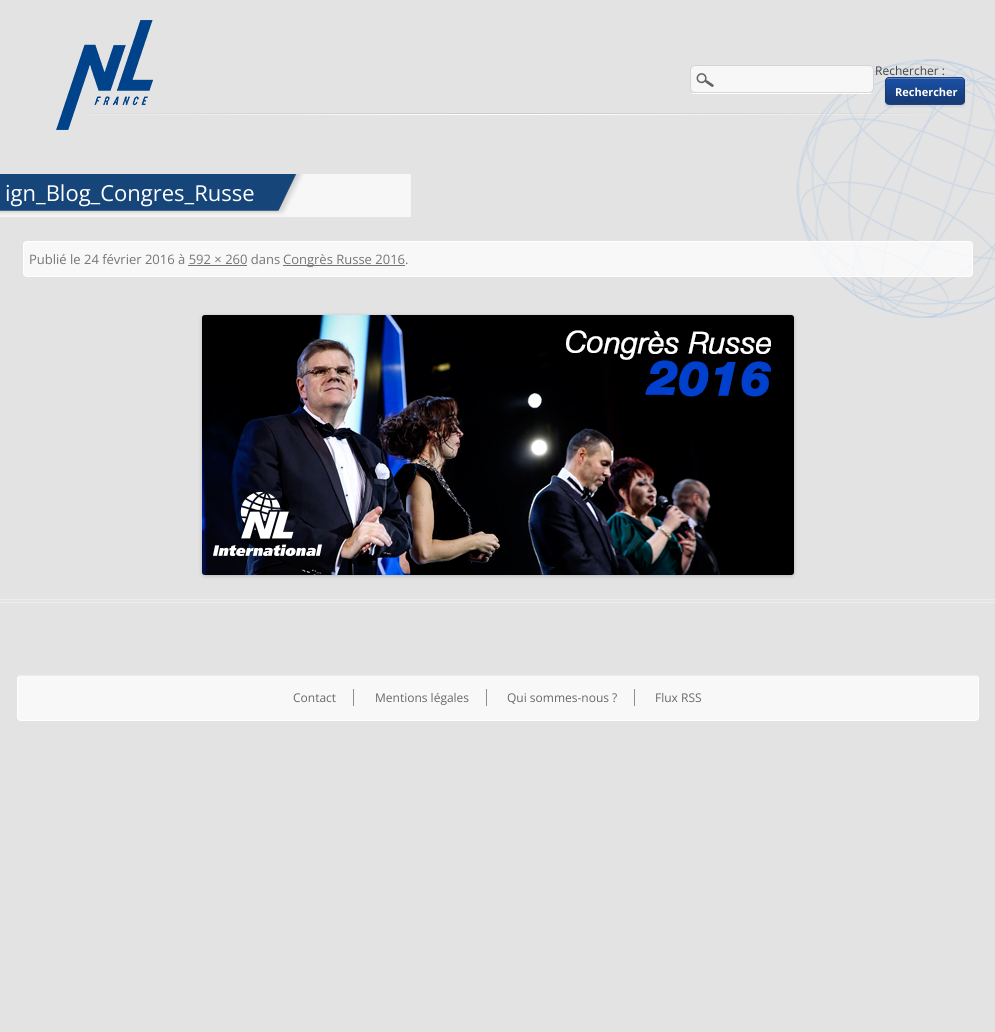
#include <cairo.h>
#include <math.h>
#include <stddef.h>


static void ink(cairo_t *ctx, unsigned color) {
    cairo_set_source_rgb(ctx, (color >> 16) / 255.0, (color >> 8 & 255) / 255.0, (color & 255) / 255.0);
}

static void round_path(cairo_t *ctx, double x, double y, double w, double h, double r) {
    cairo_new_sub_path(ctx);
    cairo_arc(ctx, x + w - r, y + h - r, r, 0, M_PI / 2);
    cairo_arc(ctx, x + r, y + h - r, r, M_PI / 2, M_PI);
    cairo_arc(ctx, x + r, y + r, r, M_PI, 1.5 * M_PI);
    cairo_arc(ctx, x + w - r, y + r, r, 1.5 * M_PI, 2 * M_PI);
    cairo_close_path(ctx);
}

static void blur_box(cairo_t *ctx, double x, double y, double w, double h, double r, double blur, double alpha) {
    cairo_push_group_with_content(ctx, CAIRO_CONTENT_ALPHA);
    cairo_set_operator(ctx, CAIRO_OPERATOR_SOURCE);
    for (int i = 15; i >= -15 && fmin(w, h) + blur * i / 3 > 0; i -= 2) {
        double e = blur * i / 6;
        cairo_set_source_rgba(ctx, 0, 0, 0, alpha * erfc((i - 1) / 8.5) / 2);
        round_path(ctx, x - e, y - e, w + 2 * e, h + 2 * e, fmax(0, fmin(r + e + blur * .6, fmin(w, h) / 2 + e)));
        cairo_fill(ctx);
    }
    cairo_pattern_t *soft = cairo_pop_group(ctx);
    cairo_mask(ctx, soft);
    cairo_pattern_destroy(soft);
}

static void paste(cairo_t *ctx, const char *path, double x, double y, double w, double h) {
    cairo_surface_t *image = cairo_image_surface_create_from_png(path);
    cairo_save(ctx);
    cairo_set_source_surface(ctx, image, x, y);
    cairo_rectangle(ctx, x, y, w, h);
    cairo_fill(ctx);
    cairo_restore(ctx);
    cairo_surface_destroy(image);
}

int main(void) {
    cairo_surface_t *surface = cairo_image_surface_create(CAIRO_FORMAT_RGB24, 995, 1032);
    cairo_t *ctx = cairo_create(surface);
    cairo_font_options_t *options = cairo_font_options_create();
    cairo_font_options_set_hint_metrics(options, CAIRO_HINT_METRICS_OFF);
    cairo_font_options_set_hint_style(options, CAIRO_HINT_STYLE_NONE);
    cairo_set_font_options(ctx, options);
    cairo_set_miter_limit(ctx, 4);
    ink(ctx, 0xE3E3E3);
    cairo_paint(ctx);
    paste(ctx, "media/1.png", 89, 59, 906, 259);
    paste(ctx, "media/2.png", 56, 20, 97, 110);
    paste(ctx, "media/3.png", 690, 65, 184, 29);
    cairo_select_font_face(ctx, "Open Sans", CAIRO_FONT_SLANT_NORMAL, CAIRO_FONT_WEIGHT_NORMAL);
    cairo_set_font_size(ctx, 12);
    ink(ctx, 0x444444);
    cairo_move_to(ctx, 875, 75);
    cairo_show_text(ctx, "Rechercher :");
    ink(ctx, 0x404040);
    blur_box(ctx, 885, 78, 80, 29, 3, 1, 0.1);
    paste(ctx, "media/4.png", 885, 77, 80, 28);
    cairo_select_font_face(ctx, "Open Sans", CAIRO_FONT_SLANT_NORMAL, CAIRO_FONT_WEIGHT_BOLD);
    cairo_set_font_size(ctx, 11);
    ink(ctx, 0xFFFFFF);
    cairo_move_to(ctx, 895, 96);
    cairo_show_text(ctx, "Rechercher");
    ink(ctx, 0xEDEDED);
    cairo_rectangle(ctx, 0, 599, 995, 1);
    cairo_fill(ctx);
    cairo_rectangle(ctx, 0, 602, 995, 1);
    cairo_fill(ctx);
    paste(ctx, "media/5.png", 0, 174, 411, 43);
    cairo_select_font_face(ctx, "Open Sans", CAIRO_FONT_SLANT_NORMAL, CAIRO_FONT_WEIGHT_NORMAL);
    cairo_set_font_size(ctx, 22);
    ink(ctx, 0xFFFFFF);
    cairo_move_to(ctx, 5, 201);
    cairo_show_text(ctx, "ign_Blog_Congres_Russe");
    cairo_set_source_rgba(ctx, 1, 1, 1, 0.75);
    round_path(ctx, 23.5, 241.5, 949, 35, 3.5);
    cairo_fill_preserve(ctx);
    ink(ctx, 0xFFFFFF);
    cairo_set_line_width(ctx, 1);
    cairo_stroke(ctx);
    cairo_set_font_size(ctx, 13);
    ink(ctx, 0x757575);
    cairo_move_to(ctx, 29, 264);
    cairo_show_text(ctx, "Publié le 24 février 2016 à 592 × 260 dans");
    cairo_rectangle(ctx, 283, 265, 122, 1);
    cairo_fill(ctx);
    cairo_move_to(ctx, 283, 264);
    cairo_show_text(ctx, "Congrès Russe 2016.");
    cairo_rectangle(ctx, 188, 265, 59, 1);
    cairo_fill(ctx);
    ink(ctx, 0x000000);
    blur_box(ctx, 202, 316, 592, 260, 3, 2, 0.2);
    paste(ctx, "media/6.png", 202, 315, 592, 260);
    ink(ctx, 0xF8F8F8);
    round_path(ctx, 17, 675, 962, 46, 4);
    cairo_fill(ctx);
    cairo_new_path(ctx);
    cairo_move_to(ctx, 18.5, 676.5);
    cairo_line_to(ctx, 21, 675.5);
    cairo_line_to(ctx, 975, 675.5);
    cairo_line_to(ctx, 977.5, 676.5);
    ink(ctx, 0xEDEDED);
    cairo_stroke(ctx);
    cairo_new_path(ctx);
    cairo_move_to(ctx, 977.5, 676.5);
    cairo_line_to(ctx, 978.5, 678.5);
    cairo_line_to(ctx, 978.5, 717.5);
    cairo_line_to(ctx, 977, 719.5);
    cairo_line_to(ctx, 975, 720.5);
    cairo_line_to(ctx, 21, 720.5);
    cairo_line_to(ctx, 19, 719.5);
    cairo_line_to(ctx, 17.5, 717.5);
    cairo_line_to(ctx, 17.5, 678.5);
    cairo_line_to(ctx, 18.5, 676.5);
    ink(ctx, 0xFFFFFF);
    cairo_stroke(ctx);
    cairo_set_font_size(ctx, 12);
    ink(ctx, 0x686868);
    cairo_move_to(ctx, 293, 702);
    cairo_show_text(ctx, "Contact");
    ink(ctx, 0x8F8F8F);
    cairo_rectangle(ctx, 353, 689, 1, 17);
    cairo_fill(ctx);
    ink(ctx, 0x686868);
    cairo_move_to(ctx, 375, 702);
    cairo_show_text(ctx, "Mentions légales");
    ink(ctx, 0x8F8F8F);
    cairo_rectangle(ctx, 486, 689, 1, 17);
    cairo_fill(ctx);
    ink(ctx, 0x686868);
    cairo_move_to(ctx, 507, 702);
    cairo_show_text(ctx, "Qui sommes-nous ?");
    ink(ctx, 0x8F8F8F);
    cairo_rectangle(ctx, 634, 689, 1, 17);
    cairo_fill(ctx);
    ink(ctx, 0x686868);
    cairo_move_to(ctx, 655, 702);
    cairo_show_text(ctx, "Flux RSS");
    cairo_surface_write_to_png(surface, "image.png");
    cairo_font_options_destroy(options);
    cairo_destroy(ctx);
    cairo_surface_destroy(surface);
    return 0;
}
